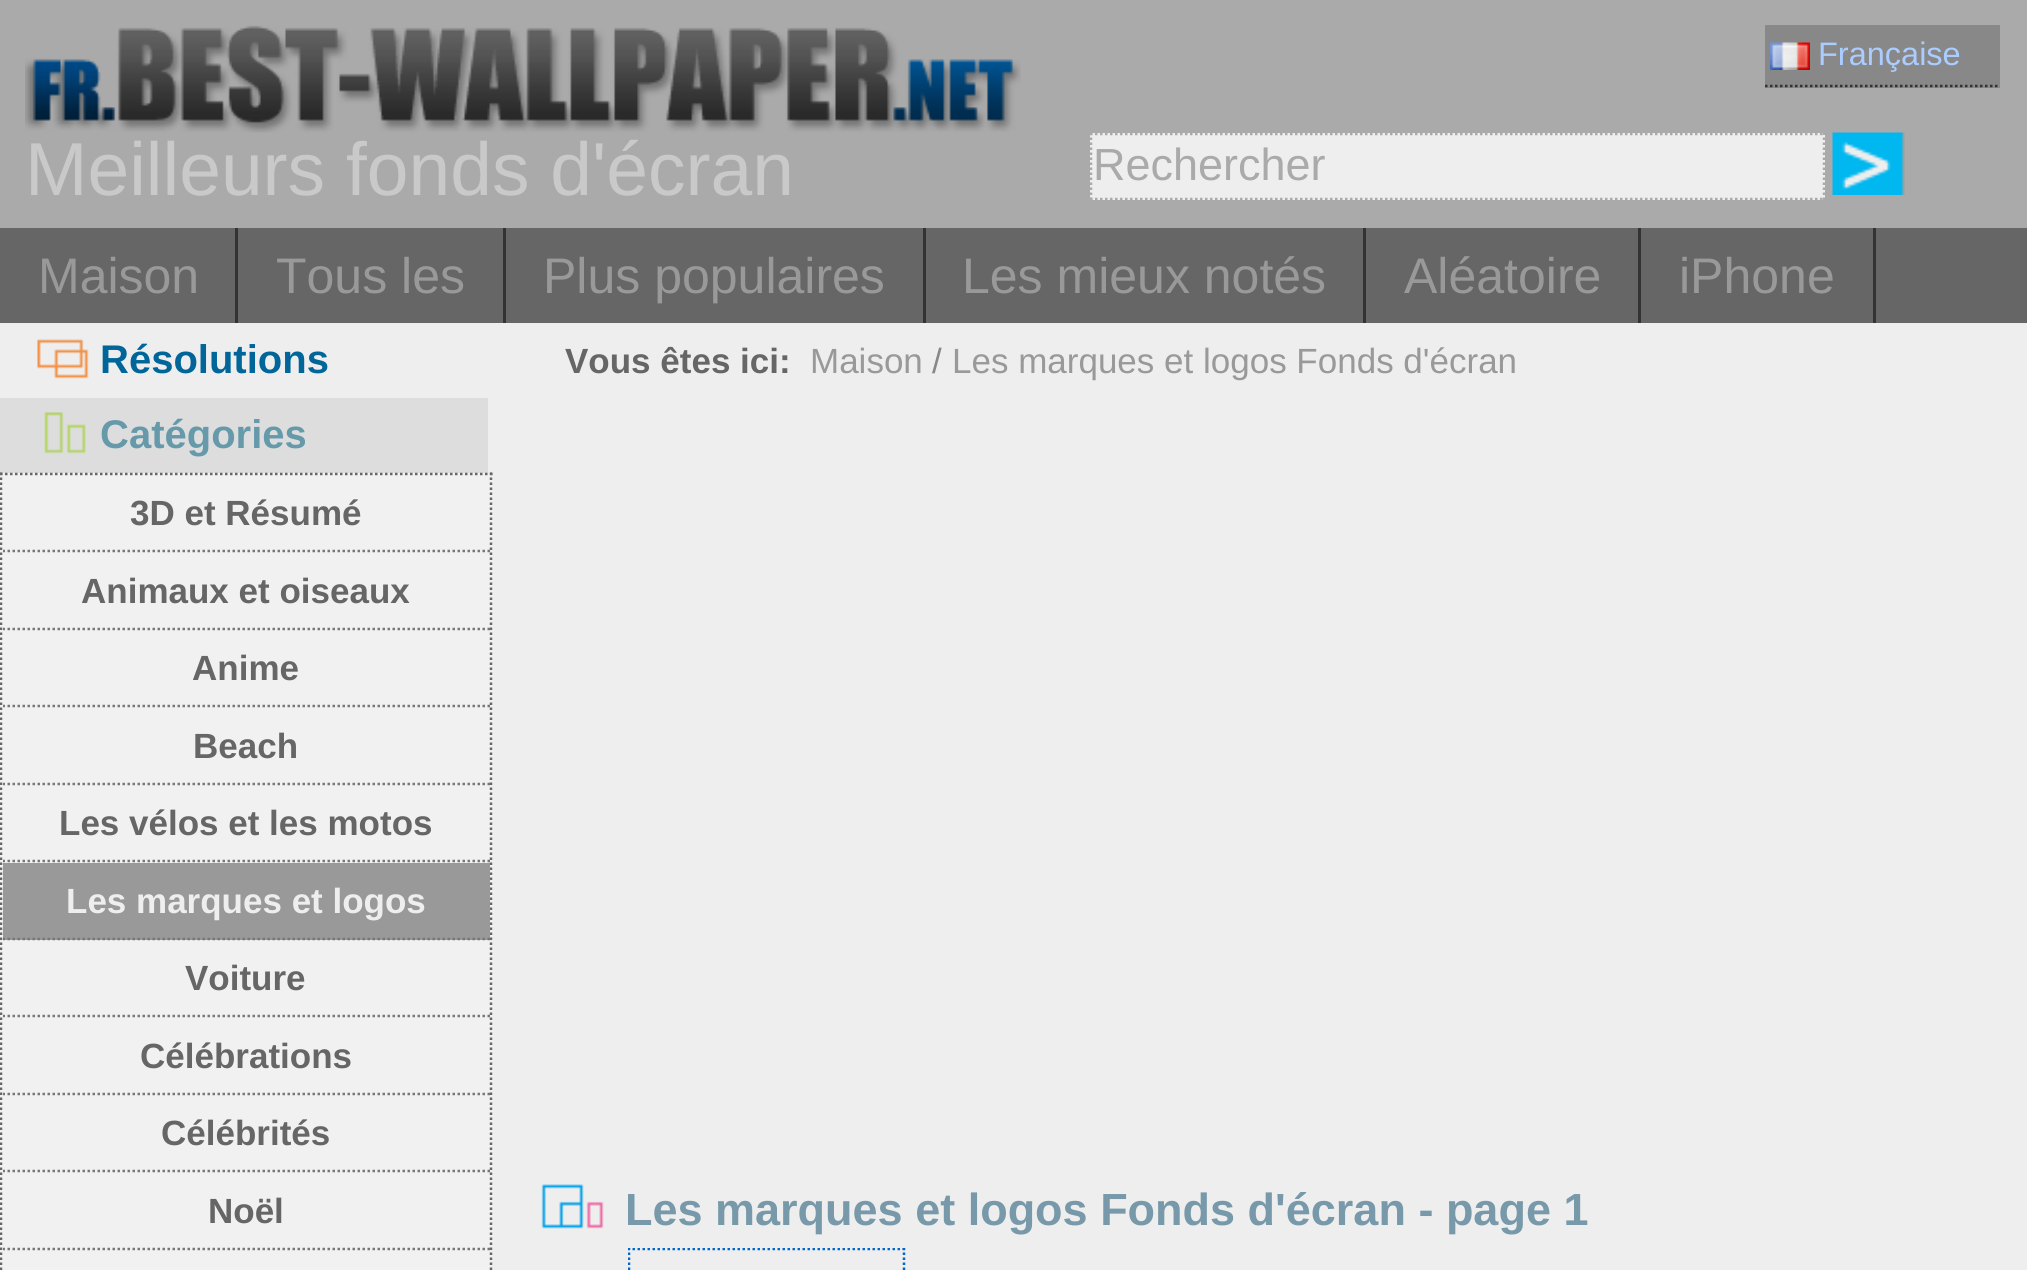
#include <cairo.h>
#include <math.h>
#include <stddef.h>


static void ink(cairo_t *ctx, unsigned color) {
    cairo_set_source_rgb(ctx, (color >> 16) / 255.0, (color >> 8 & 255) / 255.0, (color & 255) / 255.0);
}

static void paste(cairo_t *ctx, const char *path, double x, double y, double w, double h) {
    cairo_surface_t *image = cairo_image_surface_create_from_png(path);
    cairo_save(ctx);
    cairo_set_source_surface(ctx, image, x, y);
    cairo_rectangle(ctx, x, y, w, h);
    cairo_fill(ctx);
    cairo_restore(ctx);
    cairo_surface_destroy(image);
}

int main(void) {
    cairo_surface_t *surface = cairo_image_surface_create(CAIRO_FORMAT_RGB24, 2027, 1270);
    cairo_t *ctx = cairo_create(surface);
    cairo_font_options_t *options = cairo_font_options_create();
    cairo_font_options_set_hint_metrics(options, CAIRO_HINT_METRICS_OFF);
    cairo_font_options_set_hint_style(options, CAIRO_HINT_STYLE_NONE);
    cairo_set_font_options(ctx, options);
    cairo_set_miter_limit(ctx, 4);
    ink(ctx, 0xEEEEEE);
    cairo_paint(ctx);
    ink(ctx, 0xAAAAAA);
    cairo_rectangle(ctx, 0, 0, 2027, 228);
    cairo_fill(ctx);
    paste(ctx, "media/1.png", 25, 25, 996, 108);
    ink(ctx, 0x888888);
    cairo_rectangle(ctx, 1765, 25, 235, 63);
    cairo_fill(ctx);
    cairo_new_path(ctx);
    cairo_move_to(ctx, 1765, 86);
    cairo_line_to(ctx, 2000, 86);
    ink(ctx, 0x333333);
    cairo_set_line_width(ctx, 2.5);
    cairo_set_dash(ctx, (double[]){2.5, 2.5}, 2, 0);
    cairo_stroke(ctx);
    paste(ctx, "media/2.png", 1770, 42, 40, 28);
    cairo_select_font_face(ctx, "Liberation Sans", CAIRO_FONT_SLANT_NORMAL, CAIRO_FONT_WEIGHT_NORMAL);
    cairo_set_font_size(ctx, 32.5);
    ink(ctx, 0xAACCFF);
    cairo_move_to(ctx, 1818, 65);
    cairo_show_text(ctx, "Française");
    cairo_set_font_size(ctx, 75);
    ink(ctx, 0xC9C9C9);
    cairo_move_to(ctx, 25, 195);
    cairo_show_text(ctx, "Meilleurs fonds d'écran");
    ink(ctx, 0xEEEEEE);
    cairo_rectangle(ctx, 1090, 133, 735, 67);
    cairo_fill(ctx);
    cairo_new_path(ctx);
    cairo_move_to(ctx, 1090, 134);
    cairo_line_to(ctx, 1825, 134);
    ink(ctx, 0xAAAAAA);
    cairo_stroke(ctx);
    cairo_new_path(ctx);
    cairo_move_to(ctx, 1824, 132.5);
    cairo_line_to(ctx, 1824, 200);
    cairo_stroke(ctx);
    cairo_new_path(ctx);
    cairo_move_to(ctx, 1090, 199);
    cairo_line_to(ctx, 1825, 199);
    cairo_stroke(ctx);
    cairo_new_path(ctx);
    cairo_move_to(ctx, 1091, 132.5);
    cairo_line_to(ctx, 1091, 200);
    cairo_stroke(ctx);
    cairo_set_font_size(ctx, 45);
    cairo_move_to(ctx, 1093, 180);
    cairo_show_text(ctx, "Rechercher");
    paste(ctx, "media/3.png", 1832, 132, 73, 63);
    ink(ctx, 0x666666);
    cairo_rectangle(ctx, 0, 228, 2027, 95);
    cairo_fill(ctx);
    ink(ctx, 0x333333);
    cairo_rectangle(ctx, 235, 228, 3, 95);
    cairo_fill(ctx);
    cairo_set_font_size(ctx, 50);
    ink(ctx, 0x999999);
    cairo_move_to(ctx, 38, 293);
    cairo_show_text(ctx, "Maison");
    ink(ctx, 0x333333);
    cairo_rectangle(ctx, 503, 228, 3, 95);
    cairo_fill(ctx);
    ink(ctx, 0x999999);
    cairo_move_to(ctx, 276, 293);
    cairo_show_text(ctx, "Tous les");
    ink(ctx, 0x333333);
    cairo_rectangle(ctx, 923, 228, 3, 95);
    cairo_fill(ctx);
    ink(ctx, 0x999999);
    cairo_move_to(ctx, 543, 293);
    cairo_show_text(ctx, "Plus populaires");
    ink(ctx, 0x333333);
    cairo_rectangle(ctx, 1363, 228, 3, 95);
    cairo_fill(ctx);
    ink(ctx, 0x999999);
    cairo_move_to(ctx, 962, 293);
    cairo_show_text(ctx, "Les mieux notés");
    ink(ctx, 0x333333);
    cairo_rectangle(ctx, 1638, 228, 3, 95);
    cairo_fill(ctx);
    ink(ctx, 0x999999);
    cairo_move_to(ctx, 1404, 293);
    cairo_show_text(ctx, "Aléatoire");
    ink(ctx, 0x333333);
    cairo_rectangle(ctx, 1873, 228, 3, 95);
    cairo_fill(ctx);
    ink(ctx, 0x999999);
    cairo_move_to(ctx, 1679, 293);
    cairo_show_text(ctx, "iPhone");
    paste(ctx, "media/4.png", 37, 339, 52, 40);
    cairo_select_font_face(ctx, "Liberation Sans", CAIRO_FONT_SLANT_NORMAL, CAIRO_FONT_WEIGHT_BOLD);
    cairo_set_font_size(ctx, 40);
    ink(ctx, 0x006699);
    cairo_move_to(ctx, 100, 373);
    cairo_show_text(ctx, "Résolutions");
    ink(ctx, 0xDDDDDD);
    cairo_rectangle(ctx, 0, 398, 488, 75);
    cairo_fill(ctx);
    paste(ctx, "media/5.png", 44, 412, 42, 42);
    ink(ctx, 0x6699AA);
    cairo_move_to(ctx, 100, 448);
    cairo_show_text(ctx, "Catégories");
    cairo_set_font_size(ctx, 35);
    ink(ctx, 0x666666);
    cairo_move_to(ctx, 565, 373);
    cairo_show_text(ctx, "Vous êtes ici:");
    cairo_select_font_face(ctx, "Liberation Sans", CAIRO_FONT_SLANT_NORMAL, CAIRO_FONT_WEIGHT_NORMAL);
    ink(ctx, 0x999999);
    cairo_move_to(ctx, 810, 373);
    cairo_show_text(ctx, "Maison");
    ink(ctx, 0x888888);
    cairo_move_to(ctx, 932, 373);
    cairo_show_text(ctx, "/");
    ink(ctx, 0x999999);
    cairo_move_to(ctx, 952, 373);
    cairo_show_text(ctx, "Les marques et logos Fonds d'écran");
    paste(ctx, "media/6.png", 541, 1184, 63, 45);
    cairo_select_font_face(ctx, "Liberation Sans", CAIRO_FONT_SLANT_NORMAL, CAIRO_FONT_WEIGHT_BOLD);
    cairo_set_font_size(ctx, 45);
    ink(ctx, 0x7799AA);
    cairo_move_to(ctx, 625, 1225);
    cairo_show_text(ctx, "Les marques et logos Fonds d'écran - page 1");
    cairo_save(ctx);
    cairo_rectangle(ctx, 628, 1248, 1350, 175);
    cairo_clip(ctx);
    cairo_new_path(ctx);
    cairo_move_to(ctx, 627.5, 1249);
    cairo_line_to(ctx, 905, 1249);
    ink(ctx, 0x0066CC);
    cairo_stroke(ctx);
    cairo_new_path(ctx);
    cairo_move_to(ctx, 904, 1247.5);
    cairo_line_to(ctx, 904, 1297.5);
    cairo_stroke(ctx);
    cairo_new_path(ctx);
    cairo_move_to(ctx, 629, 1247.5);
    cairo_line_to(ctx, 629, 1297.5);
    cairo_stroke(ctx);
    cairo_restore(ctx);
    ink(ctx, 0xF1F1F1);
    cairo_rectangle(ctx, 0, 473, 493, 797);
    cairo_fill(ctx);
    cairo_new_path(ctx);
    cairo_move_to(ctx, 0, 474);
    cairo_line_to(ctx, 492.5, 474);
    ink(ctx, 0x666666);
    cairo_stroke(ctx);
    cairo_new_path(ctx);
    cairo_move_to(ctx, 491, 472.5);
    cairo_line_to(ctx, 491, 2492.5);
    cairo_stroke(ctx);
    cairo_new_path(ctx);
    cairo_move_to(ctx, 1, 472.5);
    cairo_line_to(ctx, 1, 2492.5);
    cairo_stroke(ctx);
    cairo_save(ctx);
    cairo_rectangle(ctx, 3, 475, 487, 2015);
    cairo_clip(ctx);
    cairo_new_path(ctx);
    cairo_move_to(ctx, 2.5, 551);
    cairo_line_to(ctx, 490, 551);
    ink(ctx, 0x777777);
    cairo_stroke(ctx);
    cairo_restore(ctx);
    cairo_set_font_size(ctx, 35);
    cairo_move_to(ctx, 130, 525);
    cairo_show_text(ctx, "3D et Résumé");
    cairo_save(ctx);
    cairo_rectangle(ctx, 3, 475, 487, 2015);
    cairo_clip(ctx);
    cairo_new_path(ctx);
    cairo_move_to(ctx, 2.5, 629);
    cairo_line_to(ctx, 490, 629);
    ink(ctx, 0x777777);
    cairo_stroke(ctx);
    cairo_restore(ctx);
    cairo_move_to(ctx, 81, 603);
    cairo_show_text(ctx, "Animaux et oiseaux");
    cairo_save(ctx);
    cairo_rectangle(ctx, 3, 475, 487, 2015);
    cairo_clip(ctx);
    cairo_new_path(ctx);
    cairo_move_to(ctx, 2.5, 706);
    cairo_line_to(ctx, 490, 706);
    ink(ctx, 0x777777);
    cairo_stroke(ctx);
    cairo_restore(ctx);
    cairo_move_to(ctx, 192, 680);
    cairo_show_text(ctx, "Anime");
    cairo_save(ctx);
    cairo_rectangle(ctx, 3, 475, 487, 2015);
    cairo_clip(ctx);
    cairo_new_path(ctx);
    cairo_move_to(ctx, 2.5, 784);
    cairo_line_to(ctx, 490, 784);
    ink(ctx, 0x777777);
    cairo_stroke(ctx);
    cairo_restore(ctx);
    cairo_move_to(ctx, 193, 758);
    cairo_show_text(ctx, "Beach");
    cairo_save(ctx);
    cairo_rectangle(ctx, 3, 475, 487, 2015);
    cairo_clip(ctx);
    cairo_new_path(ctx);
    cairo_move_to(ctx, 2.5, 861);
    cairo_line_to(ctx, 490, 861);
    ink(ctx, 0x777777);
    cairo_stroke(ctx);
    cairo_restore(ctx);
    cairo_move_to(ctx, 59, 835);
    cairo_show_text(ctx, "Les vélos et les motos");
    ink(ctx, 0x999999);
    cairo_rectangle(ctx, 3, 863, 487, 77);
    cairo_fill(ctx);
    cairo_save(ctx);
    cairo_rectangle(ctx, 3, 475, 487, 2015);
    cairo_clip(ctx);
    cairo_new_path(ctx);
    cairo_move_to(ctx, 2.5, 939);
    cairo_line_to(ctx, 490, 939);
    ink(ctx, 0x777777);
    cairo_stroke(ctx);
    cairo_restore(ctx);
    ink(ctx, 0xEEEEEE);
    cairo_move_to(ctx, 66, 913);
    cairo_show_text(ctx, "Les marques et logos");
    cairo_save(ctx);
    cairo_rectangle(ctx, 3, 475, 487, 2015);
    cairo_clip(ctx);
    cairo_new_path(ctx);
    cairo_move_to(ctx, 2.5, 1016);
    cairo_line_to(ctx, 490, 1016);
    ink(ctx, 0x777777);
    cairo_stroke(ctx);
    cairo_restore(ctx);
    ink(ctx, 0x666666);
    cairo_move_to(ctx, 185, 990);
    cairo_show_text(ctx, "Voiture");
    cairo_save(ctx);
    cairo_rectangle(ctx, 3, 475, 487, 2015);
    cairo_clip(ctx);
    cairo_new_path(ctx);
    cairo_move_to(ctx, 2.5, 1094);
    cairo_line_to(ctx, 490, 1094);
    ink(ctx, 0x777777);
    cairo_stroke(ctx);
    cairo_restore(ctx);
    cairo_move_to(ctx, 140, 1068);
    cairo_show_text(ctx, "Célébrations");
    cairo_save(ctx);
    cairo_rectangle(ctx, 3, 475, 487, 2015);
    cairo_clip(ctx);
    cairo_new_path(ctx);
    cairo_move_to(ctx, 2.5, 1171);
    cairo_line_to(ctx, 490, 1171);
    ink(ctx, 0x777777);
    cairo_stroke(ctx);
    cairo_restore(ctx);
    cairo_move_to(ctx, 161, 1145);
    cairo_show_text(ctx, "Célébrités");
    cairo_save(ctx);
    cairo_rectangle(ctx, 3, 475, 487, 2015);
    cairo_clip(ctx);
    cairo_new_path(ctx);
    cairo_move_to(ctx, 2.5, 1249);
    cairo_line_to(ctx, 490, 1249);
    ink(ctx, 0x777777);
    cairo_stroke(ctx);
    cairo_restore(ctx);
    cairo_move_to(ctx, 208, 1223);
    cairo_show_text(ctx, "Noël");
    cairo_surface_write_to_png(surface, "image.png");
    cairo_font_options_destroy(options);
    cairo_destroy(ctx);
    cairo_surface_destroy(surface);
    return 0;
}
